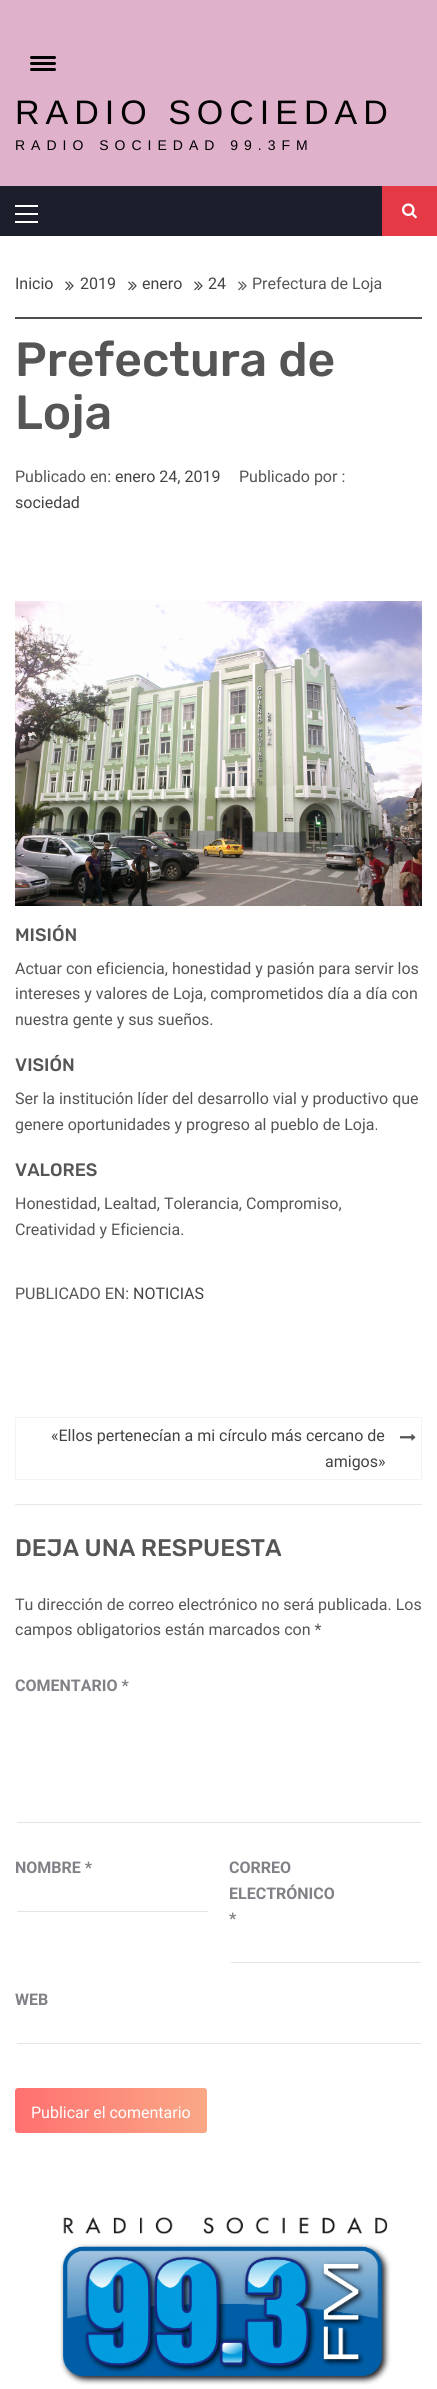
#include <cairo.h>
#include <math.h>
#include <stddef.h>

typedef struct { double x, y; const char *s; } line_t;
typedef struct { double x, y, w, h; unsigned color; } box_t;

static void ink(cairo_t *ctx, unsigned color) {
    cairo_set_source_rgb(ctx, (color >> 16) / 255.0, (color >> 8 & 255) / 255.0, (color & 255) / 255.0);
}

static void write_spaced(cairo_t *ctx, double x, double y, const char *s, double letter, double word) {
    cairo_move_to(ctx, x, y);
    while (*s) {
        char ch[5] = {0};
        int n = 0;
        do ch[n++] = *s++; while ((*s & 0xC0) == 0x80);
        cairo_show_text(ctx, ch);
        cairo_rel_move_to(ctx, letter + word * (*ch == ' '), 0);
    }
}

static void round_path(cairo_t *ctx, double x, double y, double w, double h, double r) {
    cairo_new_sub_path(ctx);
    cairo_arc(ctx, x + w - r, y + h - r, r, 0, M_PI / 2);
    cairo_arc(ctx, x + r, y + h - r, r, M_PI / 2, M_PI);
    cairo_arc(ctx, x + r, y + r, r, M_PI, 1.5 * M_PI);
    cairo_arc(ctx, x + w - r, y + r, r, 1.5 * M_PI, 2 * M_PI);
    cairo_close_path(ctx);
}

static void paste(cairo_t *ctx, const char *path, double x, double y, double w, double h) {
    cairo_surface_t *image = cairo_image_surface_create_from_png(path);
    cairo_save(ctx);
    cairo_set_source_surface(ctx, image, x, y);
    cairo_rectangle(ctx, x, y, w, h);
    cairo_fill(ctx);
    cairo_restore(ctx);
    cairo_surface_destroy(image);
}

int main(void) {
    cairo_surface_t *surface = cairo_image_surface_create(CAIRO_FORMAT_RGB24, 437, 2389);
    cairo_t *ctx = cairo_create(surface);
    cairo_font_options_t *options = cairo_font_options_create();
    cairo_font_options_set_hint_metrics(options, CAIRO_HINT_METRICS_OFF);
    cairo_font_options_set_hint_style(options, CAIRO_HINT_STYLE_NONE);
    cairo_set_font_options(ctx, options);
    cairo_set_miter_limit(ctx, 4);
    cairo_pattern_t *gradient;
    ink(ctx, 0xFFFFFF);
    cairo_paint(ctx);
    ink(ctx, 0xE0B1CB);
    cairo_rectangle(ctx, 0, 0, 437, 186);
    cairo_fill(ctx);
    ink(ctx, 0x000000);
    round_path(ctx, 30, 62, 26, 3, 1.5);
    cairo_fill(ctx);
    round_path(ctx, 30, 56, 26, 3, 1.5);
    cairo_fill(ctx);
    round_path(ctx, 30, 68, 26, 3, 1.5);
    cairo_fill(ctx);
    cairo_select_font_face(ctx, "Liberation Sans", CAIRO_FONT_SLANT_NORMAL, CAIRO_FONT_WEIGHT_NORMAL);
    cairo_set_font_size(ctx, 34);
    write_spaced(ctx, 15, 124, "RADIO SOCIEDAD", 6, 0);
    cairo_set_font_size(ctx, 14);
    write_spaced(ctx, 15, 150, "RADIO SOCIEDAD 99.3FM", 6, 0);
    {
        static const box_t items[] = {
            {0, 186, 382, 50, 0x1D1E2C},
            {15, 213, 23, 2, 0xFFFFFF},
            {15, 205, 23, 2, 0xFFFFFF},
            {15, 221, 23, 2, 0xFFFFFF},
            {382, 186, 55, 50, 0xE63946},
        };
        for (size_t i = 0; i < sizeof items / sizeof *items; i++) {
            ink(ctx, items[i].color);
            cairo_rectangle(ctx, items[i].x, items[i].y, items[i].w, items[i].h);
            cairo_fill(ctx);
        }
    }
    paste(ctx, "media/1.png", 402, 203, 15, 16);
    ink(ctx, 0x4E4E4E);
    cairo_rectangle(ctx, 15, 317, 407, 2);
    cairo_fill(ctx);
    cairo_select_font_face(ctx, "Roboto", CAIRO_FONT_SLANT_NORMAL, CAIRO_FONT_WEIGHT_NORMAL);
    cairo_set_font_size(ctx, 16);
    ink(ctx, 0x434343);
    cairo_move_to(ctx, 15, 289);
    cairo_show_text(ctx, "Inicio");
    paste(ctx, "media/2.png", 65, 281, 9, 10);
    cairo_move_to(ctx, 80, 289);
    cairo_show_text(ctx, "2019");
    paste(ctx, "media/2.png", 128, 281, 9, 10);
    cairo_move_to(ctx, 142, 289);
    cairo_show_text(ctx, "enero");
    paste(ctx, "media/2.png", 194, 281, 9, 10);
    cairo_move_to(ctx, 208, 289);
    cairo_show_text(ctx, "24");
    paste(ctx, "media/3.png", 238, 281, 9, 10);
    ink(ctx, 0x555555);
    cairo_move_to(ctx, 252, 289);
    cairo_show_text(ctx, "Prefectura de Loja");
    cairo_select_font_face(ctx, "Rubik Medium", CAIRO_FONT_SLANT_NORMAL, CAIRO_FONT_WEIGHT_NORMAL);
    cairo_set_font_size(ctx, 48);
    cairo_move_to(ctx, 15, 376);
    cairo_show_text(ctx, "Prefectura de");
    cairo_move_to(ctx, 15, 429);
    cairo_show_text(ctx, "Loja");
    cairo_select_font_face(ctx, "Roboto", CAIRO_FONT_SLANT_NORMAL, CAIRO_FONT_WEIGHT_NORMAL);
    cairo_set_font_size(ctx, 16);
    cairo_move_to(ctx, 15, 482);
    cairo_show_text(ctx, "Publicado en:");
    ink(ctx, 0x434343);
    cairo_move_to(ctx, 115, 482);
    cairo_show_text(ctx, "enero 24, 2019");
    ink(ctx, 0x555555);
    cairo_move_to(ctx, 239, 482);
    cairo_show_text(ctx, "Publicado por :");
    ink(ctx, 0x434343);
    cairo_move_to(ctx, 15, 508);
    cairo_show_text(ctx, "sociedad");
    paste(ctx, "media/4.png", 15, 601, 407, 305);
    cairo_select_font_face(ctx, "Rubik Medium", CAIRO_FONT_SLANT_NORMAL, CAIRO_FONT_WEIGHT_NORMAL);
    cairo_set_font_size(ctx, 18);
    ink(ctx, 0x555555);
    cairo_move_to(ctx, 15, 941);
    cairo_show_text(ctx, "MISIÓN");
    cairo_select_font_face(ctx, "Roboto", CAIRO_FONT_SLANT_NORMAL, CAIRO_FONT_WEIGHT_NORMAL);
    cairo_set_font_size(ctx, 16);
    {
        static const line_t items[] = {
            {15, 974, "Actuar con eficiencia, honestidad y pasión para servir los"},
            {15, 999, "intereses y valores de Loja, comprometidos día a día con"},
            {15, 1025, "nuestra gente y sus sueños."},
        };
        for (size_t i = 0; i < sizeof items / sizeof *items; i++) {
            cairo_move_to(ctx, items[i].x, items[i].y);
            cairo_show_text(ctx, items[i].s);
        }
    }
    cairo_select_font_face(ctx, "Rubik Medium", CAIRO_FONT_SLANT_NORMAL, CAIRO_FONT_WEIGHT_NORMAL);
    cairo_set_font_size(ctx, 18);
    cairo_move_to(ctx, 15, 1071);
    cairo_show_text(ctx, "VISIÓN");
    cairo_select_font_face(ctx, "Roboto", CAIRO_FONT_SLANT_NORMAL, CAIRO_FONT_WEIGHT_NORMAL);
    cairo_set_font_size(ctx, 16);
    cairo_move_to(ctx, 15, 1104);
    cairo_show_text(ctx, "Ser la institución líder del desarrollo vial y productivo que");
    cairo_move_to(ctx, 15, 1130);
    cairo_show_text(ctx, "genere oportunidades y progreso al pueblo de Loja.");
    cairo_select_font_face(ctx, "Rubik Medium", CAIRO_FONT_SLANT_NORMAL, CAIRO_FONT_WEIGHT_NORMAL);
    cairo_set_font_size(ctx, 18);
    cairo_move_to(ctx, 15, 1176);
    cairo_show_text(ctx, "VALORES");
    cairo_select_font_face(ctx, "Roboto", CAIRO_FONT_SLANT_NORMAL, CAIRO_FONT_WEIGHT_NORMAL);
    cairo_set_font_size(ctx, 16);
    {
        static const line_t items[] = {
            {15, 1209, "Honestidad, Lealtad, Tolerancia, Compromiso,"},
            {15, 1235, "Creatividad y Eficiencia."},
            {15, 1299, "PUBLICADO EN:"},
        };
        for (size_t i = 0; i < sizeof items / sizeof *items; i++) {
            cairo_move_to(ctx, items[i].x, items[i].y);
            cairo_show_text(ctx, items[i].s);
        }
    }
    ink(ctx, 0x434343);
    cairo_move_to(ctx, 133, 1299);
    cairo_show_text(ctx, "NOTICIAS");
    cairo_rectangle(ctx, 15.5, 1417.5, 406, 62);
    ink(ctx, 0xF3F3F3);
    cairo_set_line_width(ctx, 1);
    cairo_stroke(ctx);
    ink(ctx, 0x434343);
    cairo_move_to(ctx, 51, 1441);
    cairo_show_text(ctx, "«Ellos pertenecían a mi círculo más cercano de");
    cairo_move_to(ctx, 325, 1467);
    cairo_show_text(ctx, "amigos»");
    paste(ctx, "media/5.png", 400, 1433, 16, 8);
    ink(ctx, 0xE8E8E8);
    cairo_rectangle(ctx, 15, 1504, 407, 1);
    cairo_fill(ctx);
    cairo_select_font_face(ctx, "Rubik Medium", CAIRO_FONT_SLANT_NORMAL, CAIRO_FONT_WEIGHT_NORMAL);
    cairo_set_font_size(ctx, 24);
    ink(ctx, 0x555555);
    cairo_move_to(ctx, 15, 1556);
    cairo_show_text(ctx, "DEJA UNA RESPUESTA");
    cairo_select_font_face(ctx, "Roboto", CAIRO_FONT_SLANT_NORMAL, CAIRO_FONT_WEIGHT_NORMAL);
    cairo_set_font_size(ctx, 16);
    cairo_move_to(ctx, 15, 1610);
    cairo_show_text(ctx, "Tu dirección de correo electrónico no será publicada. Los");
    cairo_move_to(ctx, 15, 1635);
    cairo_show_text(ctx, "campos obligatorios están marcados con *");
    cairo_select_font_face(ctx, "Roboto", CAIRO_FONT_SLANT_NORMAL, CAIRO_FONT_WEIGHT_BOLD);
    ink(ctx, 0x808086);
    cairo_move_to(ctx, 15, 1691);
    cairo_show_text(ctx, "COMENTARIO *");
    ink(ctx, 0xE4E4E4);
    cairo_rectangle(ctx, 17, 1822, 404, 1);
    cairo_fill(ctx);
    ink(ctx, 0x808086);
    cairo_move_to(ctx, 15, 1873);
    cairo_show_text(ctx, "NOMBRE *");
    ink(ctx, 0xE4E4E4);
    cairo_rectangle(ctx, 17, 1911, 191, 1);
    cairo_fill(ctx);
    ink(ctx, 0x808086);
    {
        static const line_t items[] = {
            {229, 1873, "CORREO"},
            {229, 1899, "ELECTRÓNICO"},
            {229, 1924, "*"},
        };
        for (size_t i = 0; i < sizeof items / sizeof *items; i++) {
            cairo_move_to(ctx, items[i].x, items[i].y);
            cairo_show_text(ctx, items[i].s);
        }
    }
    ink(ctx, 0xE4E4E4);
    cairo_rectangle(ctx, 231, 1962, 190, 1);
    cairo_fill(ctx);
    ink(ctx, 0x808086);
    cairo_move_to(ctx, 15, 2005);
    cairo_show_text(ctx, "WEB");
    ink(ctx, 0xE4E4E4);
    cairo_rectangle(ctx, 17, 2043, 404, 1);
    cairo_fill(ctx);
    gradient = cairo_pattern_create_linear(15, 2111, 207, 2111);
    cairo_pattern_add_color_stop_rgba(gradient, 0, 1, 0.439, 0.439, 1);
    cairo_pattern_add_color_stop_rgba(gradient, 1, 0.98, 0.663, 0.529, 1);
    cairo_set_source(ctx, gradient);
    cairo_pattern_destroy(gradient);
    round_path(ctx, 15, 2088, 192, 45, 3);
    cairo_fill(ctx);
    cairo_select_font_face(ctx, "Roboto", CAIRO_FONT_SLANT_NORMAL, CAIRO_FONT_WEIGHT_NORMAL);
    ink(ctx, 0xFFFFFF);
    cairo_move_to(ctx, 31, 2118);
    cairo_show_text(ctx, "Publicar el comentario");
    paste(ctx, "media/6.png", 60, 2217, 331, 168);
    cairo_surface_write_to_png(surface, "image.png");
    cairo_font_options_destroy(options);
    cairo_destroy(ctx);
    cairo_surface_destroy(surface);
    return 0;
}
